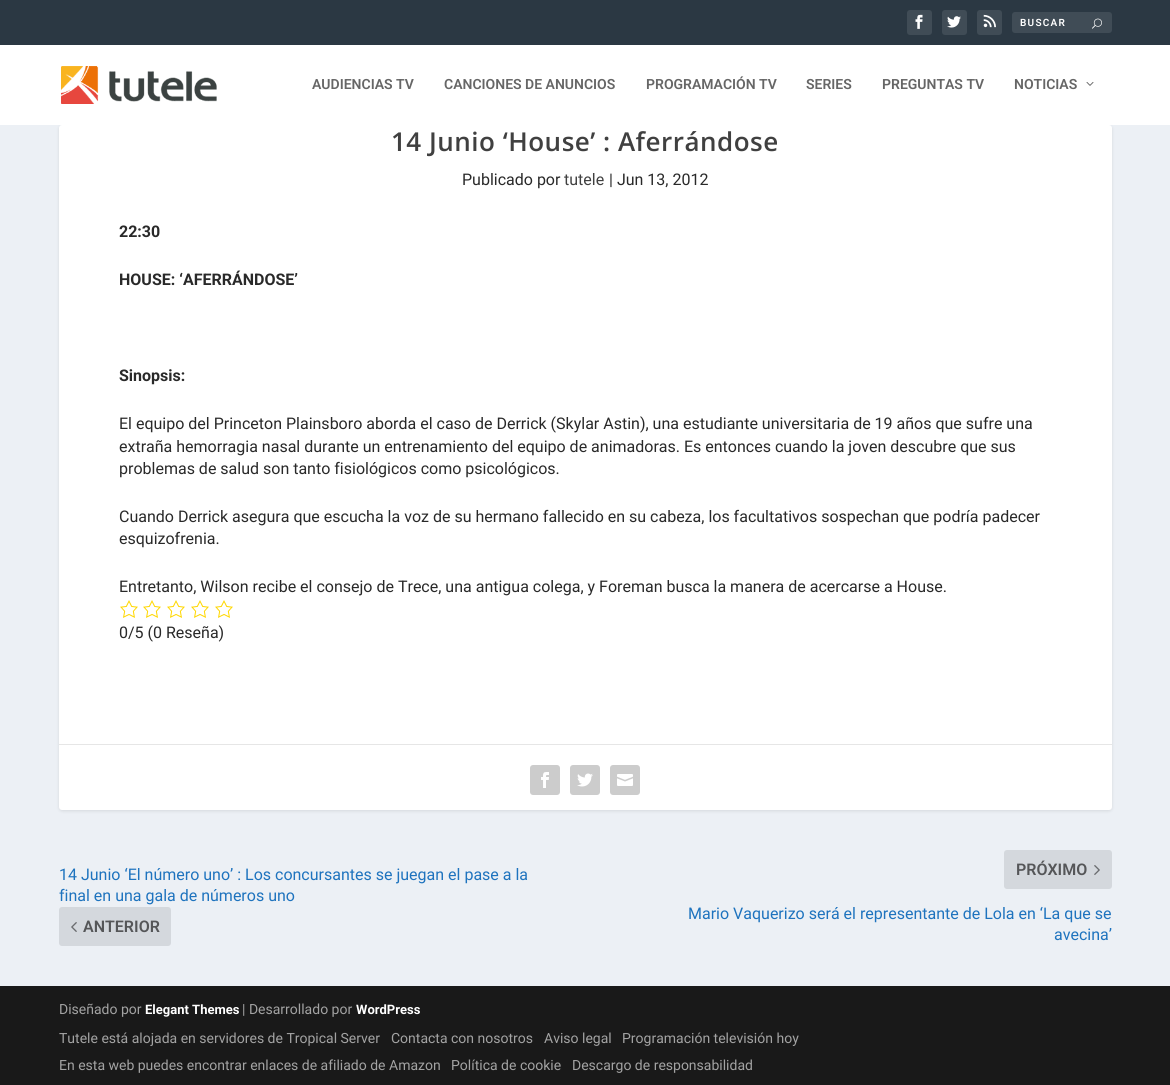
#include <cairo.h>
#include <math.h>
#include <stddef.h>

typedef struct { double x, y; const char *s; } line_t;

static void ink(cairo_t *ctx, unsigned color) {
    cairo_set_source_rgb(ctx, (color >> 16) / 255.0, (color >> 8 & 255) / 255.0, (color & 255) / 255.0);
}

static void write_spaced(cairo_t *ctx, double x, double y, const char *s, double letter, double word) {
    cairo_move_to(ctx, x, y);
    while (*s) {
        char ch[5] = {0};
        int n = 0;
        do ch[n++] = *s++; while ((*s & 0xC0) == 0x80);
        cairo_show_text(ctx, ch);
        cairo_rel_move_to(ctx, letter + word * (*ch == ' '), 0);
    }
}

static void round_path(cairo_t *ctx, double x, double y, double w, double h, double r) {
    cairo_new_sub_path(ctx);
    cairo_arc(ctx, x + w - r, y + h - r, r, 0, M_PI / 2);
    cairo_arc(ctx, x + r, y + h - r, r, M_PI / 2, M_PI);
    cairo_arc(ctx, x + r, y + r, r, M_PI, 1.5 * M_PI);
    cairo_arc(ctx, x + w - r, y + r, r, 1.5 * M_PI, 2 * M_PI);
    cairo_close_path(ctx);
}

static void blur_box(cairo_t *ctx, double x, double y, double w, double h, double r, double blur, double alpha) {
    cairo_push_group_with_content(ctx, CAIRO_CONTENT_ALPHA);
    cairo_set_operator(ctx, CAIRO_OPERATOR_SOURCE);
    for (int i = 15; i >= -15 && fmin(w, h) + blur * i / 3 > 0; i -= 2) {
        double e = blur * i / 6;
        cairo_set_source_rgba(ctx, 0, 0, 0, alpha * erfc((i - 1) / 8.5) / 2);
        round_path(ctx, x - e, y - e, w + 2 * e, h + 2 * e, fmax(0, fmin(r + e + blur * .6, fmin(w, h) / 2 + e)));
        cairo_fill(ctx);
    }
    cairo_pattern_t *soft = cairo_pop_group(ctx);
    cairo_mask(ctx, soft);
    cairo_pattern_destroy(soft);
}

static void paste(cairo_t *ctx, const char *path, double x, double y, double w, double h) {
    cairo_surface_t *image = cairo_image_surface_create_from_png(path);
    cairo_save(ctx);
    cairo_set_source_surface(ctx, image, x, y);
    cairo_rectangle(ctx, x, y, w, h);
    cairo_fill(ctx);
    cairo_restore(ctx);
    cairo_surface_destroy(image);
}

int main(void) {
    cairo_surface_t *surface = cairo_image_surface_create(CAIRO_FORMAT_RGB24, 1170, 1085);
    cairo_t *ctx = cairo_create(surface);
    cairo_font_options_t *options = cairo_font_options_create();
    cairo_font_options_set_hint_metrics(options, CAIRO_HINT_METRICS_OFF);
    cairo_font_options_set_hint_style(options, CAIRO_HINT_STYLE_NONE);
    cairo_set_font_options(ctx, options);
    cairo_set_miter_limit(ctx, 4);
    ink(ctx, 0xECF0F5);
    cairo_paint(ctx);
    ink(ctx, 0x2B3843);
    cairo_rectangle(ctx, 0, 0, 1170, 45);
    cairo_fill(ctx);
    ink(ctx, 0x404C56);
    round_path(ctx, 907, 10, 25, 25, 3);
    cairo_fill(ctx);
    paste(ctx, "media/1.png", 915, 14, 8, 15);
    round_path(ctx, 942, 10, 25, 25, 3);
    cairo_fill(ctx);
    paste(ctx, "media/2.png", 947, 16, 14, 12);
    round_path(ctx, 977, 10, 25, 25, 3);
    cairo_fill(ctx);
    paste(ctx, "media/3.png", 983, 14, 13, 14);
    round_path(ctx, 1012, 12, 100, 21, 3);
    cairo_fill(ctx);
    cairo_select_font_face(ctx, "Roboto SemiBold", CAIRO_FONT_SLANT_NORMAL, CAIRO_FONT_WEIGHT_NORMAL);
    cairo_set_font_size(ctx, 10);
    ink(ctx, 0xFFFFFF);
    write_spaced(ctx, 1020, 26, "BUSCAR", 1.25, 0);
    paste(ctx, "media/4.png", 1092, 18, 10, 11);
    ink(ctx, 0x000000);
    blur_box(ctx, 59, 126, 1053, 685, 3, 1.5, 0.1);
    ink(ctx, 0xFFFFFF);
    cairo_rectangle(ctx, 0, 45, 1170, 80);
    cairo_fill(ctx);
    paste(ctx, "media/5.png", 61, 66, 156, 38);
    cairo_set_font_size(ctx, 14);
    ink(ctx, 0x666666);
    {
        static const line_t items[] = {
            {312, 89, "AUDIENCIAS TV"},
            {444, 89, "CANCIONES DE ANUNCIOS"},
            {646, 89, "PROGRAMACIÓN TV"},
            {806, 89, "SERIES"},
            {882, 89, "PREGUNTAS TV"},
            {1014, 89, "NOTICIAS"},
        };
        for (size_t i = 0; i < sizeof items / sizeof *items; i++) {
            cairo_move_to(ctx, items[i].x, items[i].y);
            cairo_show_text(ctx, items[i].s);
        }
    }
    paste(ctx, "media/6.png", 1086, 82, 8, 4);
    ink(ctx, 0xFFFFFF);
    round_path(ctx, 59, 125, 1053, 685, 3);
    cairo_fill(ctx);
    cairo_select_font_face(ctx, "Open Sans SemiBold", CAIRO_FONT_SLANT_NORMAL, CAIRO_FONT_WEIGHT_NORMAL);
    cairo_set_font_size(ctx, 26);
    ink(ctx, 0x404040);
    write_spaced(ctx, 391, 151, "14 Junio ‘House’ : Aferrándose", 0.5, 0);
    cairo_select_font_face(ctx, "Roboto", CAIRO_FONT_SLANT_NORMAL, CAIRO_FONT_WEIGHT_NORMAL);
    cairo_set_font_size(ctx, 16);
    ink(ctx, 0x292929);
    cairo_move_to(ctx, 462, 185);
    cairo_show_text(ctx, "Publicado por");
    ink(ctx, 0x404040);
    cairo_move_to(ctx, 564, 185);
    cairo_show_text(ctx, "tutele");
    ink(ctx, 0x292929);
    cairo_move_to(ctx, 609, 185);
    cairo_show_text(ctx, "| Jun 13, 2012");
    cairo_select_font_face(ctx, "Roboto", CAIRO_FONT_SLANT_NORMAL, CAIRO_FONT_WEIGHT_BOLD);
    {
        static const line_t items[] = {
            {119, 237, "22:30"},
            {119, 285, "HOUSE: ‘AFERRÁNDOSE’"},
            {119, 381, "Sinopsis:"},
        };
        for (size_t i = 0; i < sizeof items / sizeof *items; i++) {
            cairo_move_to(ctx, items[i].x, items[i].y);
            cairo_show_text(ctx, items[i].s);
        }
    }
    cairo_select_font_face(ctx, "Roboto", CAIRO_FONT_SLANT_NORMAL, CAIRO_FONT_WEIGHT_NORMAL);
    {
        static const line_t items[] = {
            {119, 429, "El equipo del Princeton Plainsboro aborda el caso de Derrick (Skylar Astin), una estudiante universitaria de 19 años que sufre una"},
            {119, 452, "extraña hemorragia nasal durante un entrenamiento del equipo de animadoras. Es entonces cuando la joven descubre que sus"},
            {119, 474, "problemas de salud son tanto fisiológicos como psicológicos."},
            {119, 522, "Cuando Derrick asegura que escucha la voz de su hermano fallecido en su cabeza, los facultativos sospechan que podría padecer"},
            {119, 544, "esquizofrenia."},
            {119, 592, "Entretanto, Wilson recibe el consejo de Trece, una antigua colega, y Foreman busca la manera de acercarse a House."},
        };
        for (size_t i = 0; i < sizeof items / sizeof *items; i++) {
            cairo_move_to(ctx, items[i].x, items[i].y);
            cairo_show_text(ctx, items[i].s);
        }
    }
    paste(ctx, "media/7.png", 120, 600, 18, 18);
    paste(ctx, "media/7.png", 143, 600, 18, 18);
    paste(ctx, "media/7.png", 167, 600, 18, 18);
    paste(ctx, "media/7.png", 191, 600, 18, 18);
    paste(ctx, "media/7.png", 215, 600, 18, 18);
    cairo_move_to(ctx, 119, 638);
    cairo_show_text(ctx, "0/5 (0 Reseña)");
    ink(ctx, 0xE6E6E6);
    cairo_rectangle(ctx, 59, 744, 1053, 1);
    cairo_fill(ctx);
    ink(ctx, 0xCCCCCC);
    round_path(ctx, 530, 765, 30, 30, 3);
    cairo_fill(ctx);
    paste(ctx, "media/8.png", 541, 772, 8, 16);
    round_path(ctx, 570, 765, 30, 30, 3);
    cairo_fill(ctx);
    paste(ctx, "media/9.png", 577, 773, 16, 14);
    round_path(ctx, 610, 765, 30, 30, 3);
    cairo_fill(ctx);
    paste(ctx, "media/10.png", 617, 774, 16, 12);
    ink(ctx, 0x1E73BE);
    cairo_move_to(ctx, 59, 880);
    cairo_show_text(ctx, "14 Junio ‘El número uno’ : Los concursantes se juegan el pase a la");
    cairo_move_to(ctx, 59, 901);
    cairo_show_text(ctx, "final en una gala de números uno");
    ink(ctx, 0xD4D8DD);
    round_path(ctx, 59, 907, 112, 39, 3);
    cairo_fill(ctx);
    paste(ctx, "media/11.png", 71, 922, 6, 10);
    cairo_select_font_face(ctx, "Roboto SemiBold", CAIRO_FONT_SLANT_NORMAL, CAIRO_FONT_WEIGHT_NORMAL);
    ink(ctx, 0x555658);
    cairo_move_to(ctx, 83, 932);
    cairo_show_text(ctx, "ANTERIOR");
    ink(ctx, 0xD4D8DD);
    round_path(ctx, 1004, 850, 108, 39, 3);
    cairo_fill(ctx);
    ink(ctx, 0x555658);
    cairo_move_to(ctx, 1016, 875);
    cairo_show_text(ctx, "PRÓXIMO");
    paste(ctx, "media/12.png", 1094, 865, 6, 10);
    cairo_select_font_face(ctx, "Roboto", CAIRO_FONT_SLANT_NORMAL, CAIRO_FONT_WEIGHT_NORMAL);
    ink(ctx, 0x1E73BE);
    cairo_move_to(ctx, 688, 919);
    cairo_show_text(ctx, "Mario Vaquerizo será el representante de Lola en ‘La que se");
    cairo_move_to(ctx, 1054, 940);
    cairo_show_text(ctx, "avecina’");
    ink(ctx, 0x191919);
    cairo_rectangle(ctx, 0, 986, 1170, 99);
    cairo_fill(ctx);
    cairo_set_font_size(ctx, 14);
    ink(ctx, 0xA3A3A3);
    cairo_move_to(ctx, 59, 1014);
    cairo_show_text(ctx, "Diseñado por");
    cairo_select_font_face(ctx, "Roboto", CAIRO_FONT_SLANT_NORMAL, CAIRO_FONT_WEIGHT_BOLD);
    cairo_set_font_size(ctx, 13);
    ink(ctx, 0xFFFFFF);
    cairo_move_to(ctx, 145, 1014);
    cairo_show_text(ctx, "Elegant Themes");
    cairo_select_font_face(ctx, "Roboto", CAIRO_FONT_SLANT_NORMAL, CAIRO_FONT_WEIGHT_NORMAL);
    cairo_set_font_size(ctx, 14);
    ink(ctx, 0xA3A3A3);
    cairo_move_to(ctx, 242, 1014);
    cairo_show_text(ctx, "| Desarrollado por");
    cairo_select_font_face(ctx, "Roboto", CAIRO_FONT_SLANT_NORMAL, CAIRO_FONT_WEIGHT_BOLD);
    cairo_set_font_size(ctx, 13);
    ink(ctx, 0xFFFFFF);
    cairo_move_to(ctx, 356, 1014);
    cairo_show_text(ctx, "WordPress");
    cairo_select_font_face(ctx, "Roboto", CAIRO_FONT_SLANT_NORMAL, CAIRO_FONT_WEIGHT_NORMAL);
    cairo_set_font_size(ctx, 14);
    ink(ctx, 0xA3A3A3);
    {
        static const line_t items[] = {
            {59, 1043, "Tutele está alojada en servidores de Tropical Server"},
            {391, 1043, "Contacta con nosotros"},
            {544, 1043, "Aviso legal"},
            {622, 1043, "Programación televisión hoy"},
            {59, 1070, "En esta web puedes encontrar enlaces de afiliado de Amazon"},
            {451, 1070, "Política de cookie"},
            {572, 1070, "Descargo de responsabilidad"},
        };
        for (size_t i = 0; i < sizeof items / sizeof *items; i++) {
            cairo_move_to(ctx, items[i].x, items[i].y);
            cairo_show_text(ctx, items[i].s);
        }
    }
    cairo_surface_write_to_png(surface, "image.png");
    cairo_font_options_destroy(options);
    cairo_destroy(ctx);
    cairo_surface_destroy(surface);
    return 0;
}
